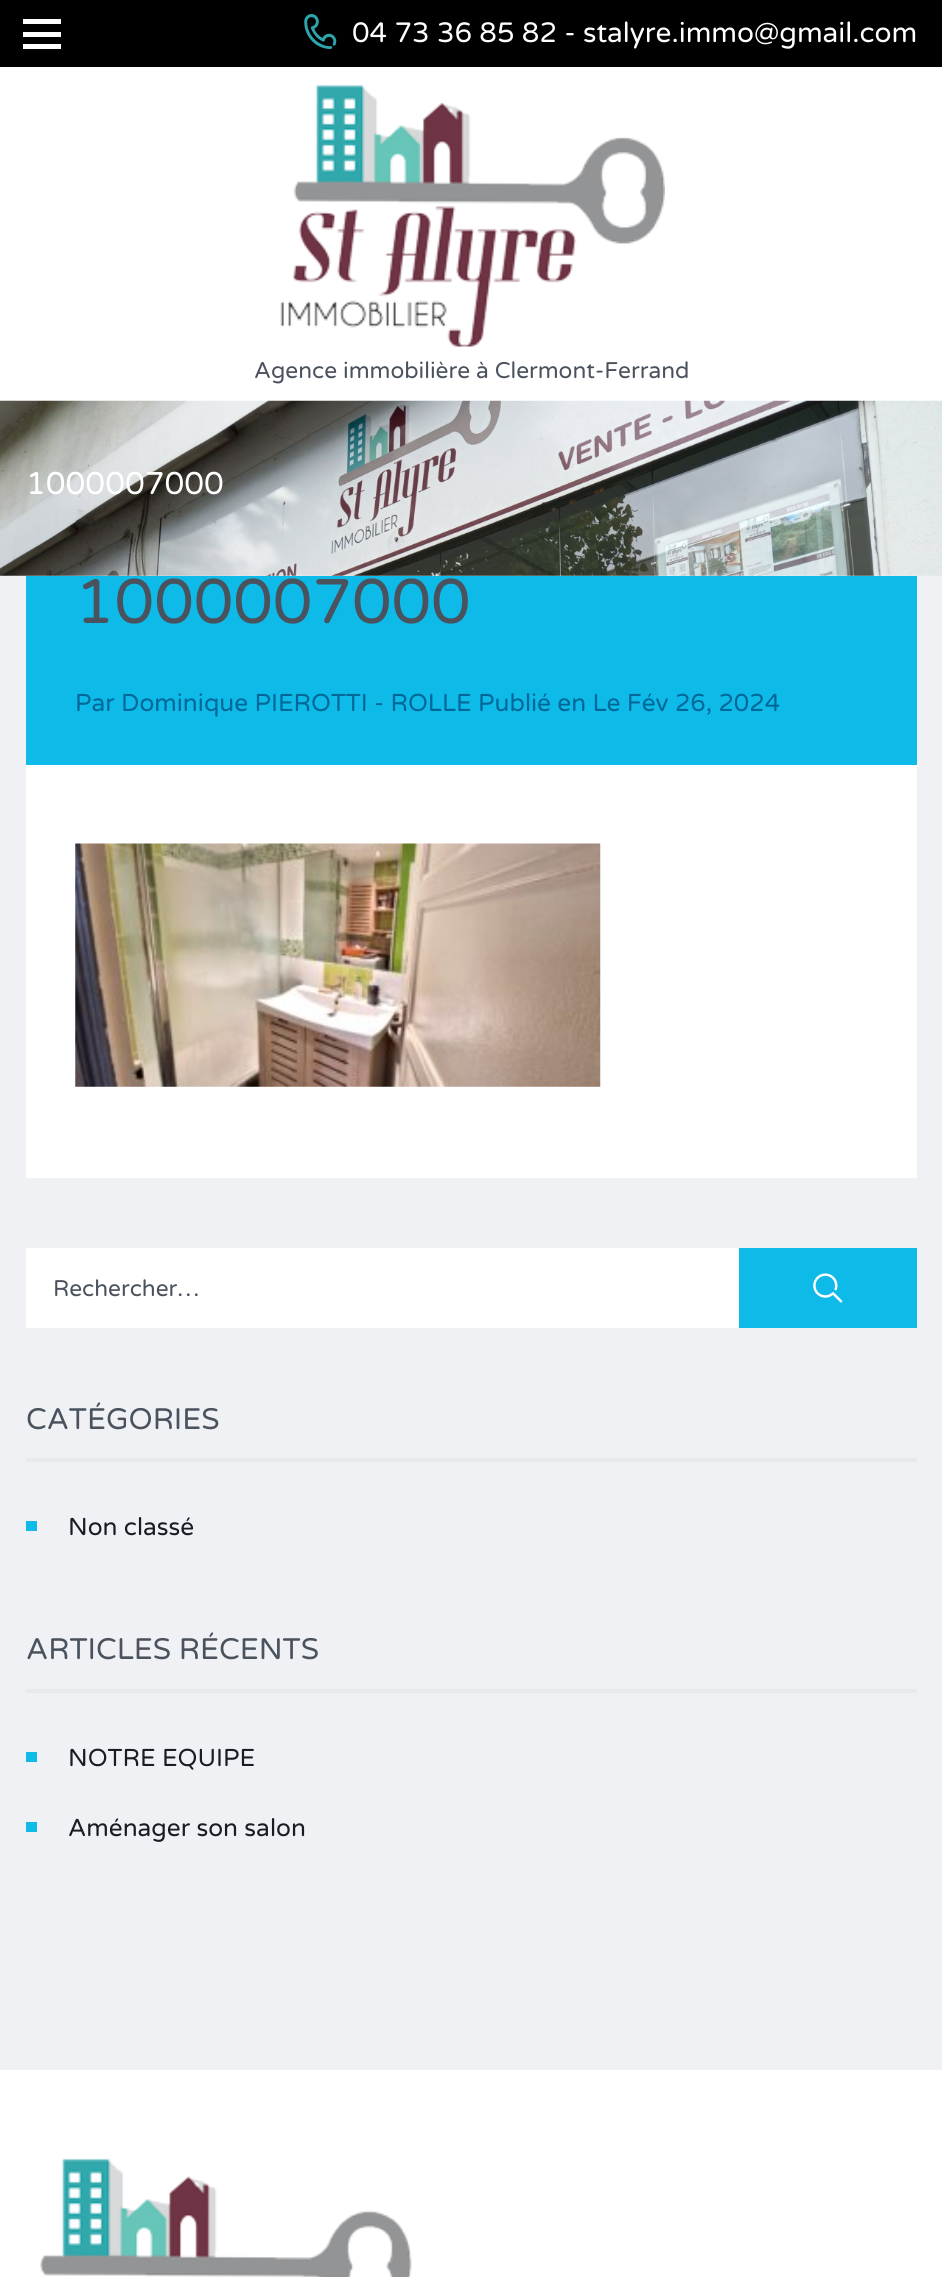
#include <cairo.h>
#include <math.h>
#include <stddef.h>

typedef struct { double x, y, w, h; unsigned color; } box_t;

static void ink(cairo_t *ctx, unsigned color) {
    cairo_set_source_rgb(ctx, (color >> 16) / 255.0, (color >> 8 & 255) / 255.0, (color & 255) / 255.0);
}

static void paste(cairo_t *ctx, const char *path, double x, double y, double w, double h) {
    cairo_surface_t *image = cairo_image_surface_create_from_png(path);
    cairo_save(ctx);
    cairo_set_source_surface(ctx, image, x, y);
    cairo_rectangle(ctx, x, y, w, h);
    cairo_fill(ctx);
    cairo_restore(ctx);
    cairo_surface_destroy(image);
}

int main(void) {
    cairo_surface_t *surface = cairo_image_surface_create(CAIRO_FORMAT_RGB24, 942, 2277);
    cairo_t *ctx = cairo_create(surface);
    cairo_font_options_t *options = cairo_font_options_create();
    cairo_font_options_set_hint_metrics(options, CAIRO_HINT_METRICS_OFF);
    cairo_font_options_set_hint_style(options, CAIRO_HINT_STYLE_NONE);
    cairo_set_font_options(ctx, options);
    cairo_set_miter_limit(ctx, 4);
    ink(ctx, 0xEFF1F5);
    cairo_paint(ctx);
    {
        static const box_t items[] = {
            {0, 0, 942, 67, 0x000000},
            {23, 19, 38, 5, 0xFFFFFF},
            {23, 32, 38, 5, 0xFFFFFF},
            {23, 44, 38, 5, 0xFFFFFF},
        };
        for (size_t i = 0; i < sizeof items / sizeof *items; i++) {
            ink(ctx, items[i].color);
            cairo_rectangle(ctx, items[i].x, items[i].y, items[i].w, items[i].h);
            cairo_fill(ctx);
        }
    }
    paste(ctx, "media/1.png", 304, 14, 33, 35);
    cairo_select_font_face(ctx, "Varela Round", CAIRO_FONT_SLANT_NORMAL, CAIRO_FONT_WEIGHT_NORMAL);
    cairo_set_font_size(ctx, 28);
    cairo_move_to(ctx, 352, 42);
    cairo_show_text(ctx, "04 73 36 85 82 - stalyre.immo@gmail.com");
    cairo_rectangle(ctx, 0, 67, 942, 334);
    cairo_fill(ctx);
    paste(ctx, "media/2.png", 280, 84, 385, 263);
    cairo_set_font_size(ctx, 22.75);
    ink(ctx, 0x4A525D);
    cairo_move_to(ctx, 254, 378);
    cairo_show_text(ctx, "Agence immobilière à Clermont-Ferrand");
    paste(ctx, "media/3.png", 0, 400, 942, 176);
    cairo_set_font_size(ctx, 31.5);
    ink(ctx, 0xFFFFFF);
    cairo_move_to(ctx, 26, 494);
    cairo_show_text(ctx, "1000007000");
    cairo_rectangle(ctx, 26, 765, 891, 413);
    cairo_fill(ctx);
    ink(ctx, 0x0DBAE8);
    cairo_rectangle(ctx, 26, 576, 891, 189);
    cairo_fill(ctx);
    cairo_set_font_size(ctx, 63);
    ink(ctx, 0x4A525D);
    cairo_move_to(ctx, 75, 623);
    cairo_show_text(ctx, "1000007000");
    cairo_set_font_size(ctx, 24.5);
    ink(ctx, 0x006798);
    cairo_move_to(ctx, 75, 711);
    cairo_show_text(ctx, "Par Dominique PIEROTTI - ROLLE Publié en Le Fév 26, 2024");
    paste(ctx, "media/4.png", 75, 843, 526, 244);
    ink(ctx, 0xFFFFFF);
    cairo_rectangle(ctx, 26, 1248, 713, 80);
    cairo_fill(ctx);
    cairo_set_font_size(ctx, 22.75);
    ink(ctx, 0x4A525D);
    cairo_move_to(ctx, 53, 1296);
    cairo_show_text(ctx, "Rechercher…");
    ink(ctx, 0x0DBAE8);
    cairo_rectangle(ctx, 739, 1248, 178, 80);
    cairo_fill(ctx);
    paste(ctx, "media/5.png", 813, 1273, 30, 30);
    ink(ctx, 0xE5EAED);
    cairo_rectangle(ctx, 26, 1458, 891, 4);
    cairo_fill(ctx);
    cairo_set_font_size(ctx, 29.75);
    ink(ctx, 0x4A525D);
    cairo_move_to(ctx, 26, 1429);
    cairo_show_text(ctx, "CATÉGORIES");
    ink(ctx, 0x0DBAE8);
    cairo_rectangle(ctx, 26, 1521, 11, 10);
    cairo_fill(ctx);
    cairo_set_font_size(ctx, 24.5);
    ink(ctx, 0x191C20);
    cairo_move_to(ctx, 68, 1535);
    cairo_show_text(ctx, "Non classé");
    ink(ctx, 0xE5EAED);
    cairo_rectangle(ctx, 26, 1689, 891, 4);
    cairo_fill(ctx);
    cairo_set_font_size(ctx, 29.75);
    ink(ctx, 0x4A525D);
    cairo_move_to(ctx, 26, 1659);
    cairo_show_text(ctx, "ARTICLES RÉCENTS");
    ink(ctx, 0x0DBAE8);
    cairo_rectangle(ctx, 26, 1752, 11, 10);
    cairo_fill(ctx);
    cairo_set_font_size(ctx, 24.5);
    ink(ctx, 0x191C20);
    cairo_move_to(ctx, 68, 1766);
    cairo_show_text(ctx, "NOTRE EQUIPE");
    ink(ctx, 0x0DBAE8);
    cairo_rectangle(ctx, 26, 1822, 11, 10);
    cairo_fill(ctx);
    ink(ctx, 0x191C20);
    cairo_move_to(ctx, 68, 1836);
    cairo_show_text(ctx, "Aménager son salon");
    ink(ctx, 0xFFFFFF);
    cairo_rectangle(ctx, 0, 2070, 942, 207);
    cairo_fill(ctx);
    paste(ctx, "media/6.png", 40, 2158, 372, 119);
    cairo_surface_write_to_png(surface, "image.png");
    cairo_font_options_destroy(options);
    cairo_destroy(ctx);
    cairo_surface_destroy(surface);
    return 0;
}
